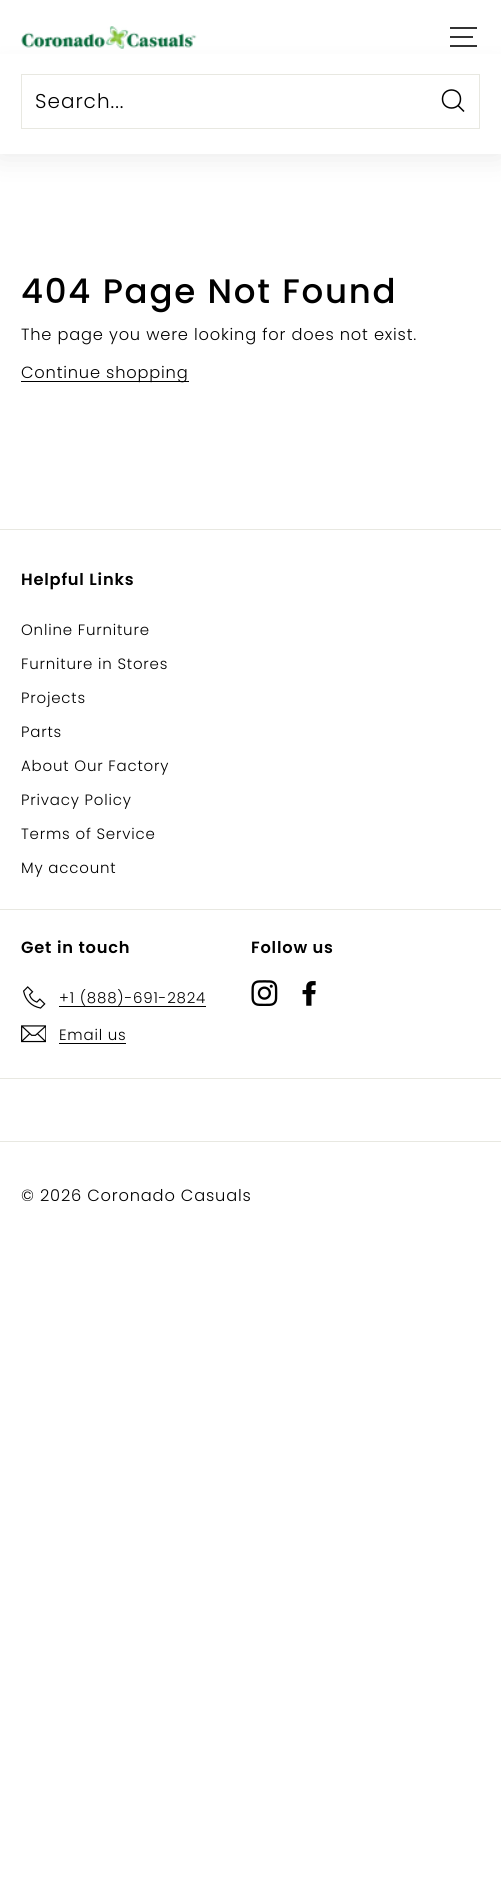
#include <cairo.h>
#include <math.h>
#include <stddef.h>

typedef struct { double x, y; const char *s; } line_t;
typedef struct { double x, y, w, h; unsigned color; } box_t;

static void ink(cairo_t *ctx, unsigned color) {
    cairo_set_source_rgb(ctx, (color >> 16) / 255.0, (color >> 8 & 255) / 255.0, (color & 255) / 255.0);
}

static void write_spaced(cairo_t *ctx, double x, double y, const char *s, double letter, double word) {
    cairo_move_to(ctx, x, y);
    while (*s) {
        char ch[5] = {0};
        int n = 0;
        do ch[n++] = *s++; while ((*s & 0xC0) == 0x80);
        cairo_show_text(ctx, ch);
        cairo_rel_move_to(ctx, letter + word * (*ch == ' '), 0);
    }
}

static void round_path(cairo_t *ctx, double x, double y, double w, double h, double r) {
    cairo_new_sub_path(ctx);
    cairo_arc(ctx, x + w - r, y + h - r, r, 0, M_PI / 2);
    cairo_arc(ctx, x + r, y + h - r, r, M_PI / 2, M_PI);
    cairo_arc(ctx, x + r, y + r, r, M_PI, 1.5 * M_PI);
    cairo_arc(ctx, x + w - r, y + r, r, 1.5 * M_PI, 2 * M_PI);
    cairo_close_path(ctx);
}

static void blur_box(cairo_t *ctx, double x, double y, double w, double h, double r, double blur, double alpha) {
    cairo_push_group_with_content(ctx, CAIRO_CONTENT_ALPHA);
    cairo_set_operator(ctx, CAIRO_OPERATOR_SOURCE);
    for (int i = 15; i >= -15 && fmin(w, h) + blur * i / 3 > 0; i -= 2) {
        double e = blur * i / 6;
        cairo_set_source_rgba(ctx, 0, 0, 0, alpha * erfc((i - 1) / 8.5) / 2);
        round_path(ctx, x - e, y - e, w + 2 * e, h + 2 * e, fmax(0, fmin(r + e + blur * .6, fmin(w, h) / 2 + e)));
        cairo_fill(ctx);
    }
    cairo_pattern_t *soft = cairo_pop_group(ctx);
    cairo_mask(ctx, soft);
    cairo_pattern_destroy(soft);
}

static void paste(cairo_t *ctx, const char *path, double x, double y, double w, double h) {
    cairo_surface_t *image = cairo_image_surface_create_from_png(path);
    cairo_save(ctx);
    cairo_set_source_surface(ctx, image, x, y);
    cairo_rectangle(ctx, x, y, w, h);
    cairo_fill(ctx);
    cairo_restore(ctx);
    cairo_surface_destroy(image);
}

int main(void) {
    cairo_surface_t *surface = cairo_image_surface_create(CAIRO_FORMAT_RGB24, 501, 1899);
    cairo_t *ctx = cairo_create(surface);
    cairo_font_options_t *options = cairo_font_options_create();
    cairo_font_options_set_hint_metrics(options, CAIRO_HINT_METRICS_OFF);
    cairo_font_options_set_hint_style(options, CAIRO_HINT_STYLE_NONE);
    cairo_set_font_options(ctx, options);
    cairo_set_miter_limit(ctx, 4);
    ink(ctx, 0xFFFFFF);
    cairo_paint(ctx);
    ink(ctx, 0x000000);
    blur_box(ctx, 0, 74, 501, 80, 0, 15.5, 0.1);
    paste(ctx, "media/1.png", 21, 26, 176, 23);
    {
        static const box_t items[] = {
            {450, 27, 27, 2, 0x333333},
            {450, 36, 23, 2, 0x333333},
            {450, 45, 27, 2, 0x333333},
            {0, 54, 501, 100, 0xFFFFFF},
        };
        for (size_t i = 0; i < sizeof items / sizeof *items; i++) {
            ink(ctx, items[i].color);
            cairo_rectangle(ctx, items[i].x, items[i].y, items[i].w, items[i].h);
            cairo_fill(ctx);
        }
    }
    cairo_rectangle(ctx, 21.5, 74.5, 458, 54);
    ink(ctx, 0xE8E8E1);
    cairo_set_line_width(ctx, 1);
    cairo_stroke(ctx);
    cairo_select_font_face(ctx, "Poppins Light", CAIRO_FONT_SLANT_NORMAL, CAIRO_FONT_WEIGHT_NORMAL);
    cairo_set_font_size(ctx, 20);
    ink(ctx, 0x000000);
    write_spaced(ctx, 35, 108, "Search...", 1, 0);
    cairo_new_path(ctx);
    cairo_move_to(ctx, 460.5, 99);
    cairo_curve_to(ctx, 460.5, 111, 442.5, 111, 442.5, 99);
    cairo_curve_to(ctx, 442.5, 87, 460.5, 87, 460.5, 99);
    cairo_close_path(ctx);
    cairo_move_to(ctx, 464, 111.5);
    cairo_line_to(ctx, 458, 105.5);
    cairo_set_line_width(ctx, 1.5);
    cairo_stroke(ctx);
    cairo_select_font_face(ctx, "Poppins Medium", CAIRO_FONT_SLANT_NORMAL, CAIRO_FONT_WEIGHT_NORMAL);
    cairo_set_font_size(ctx, 34);
    write_spaced(ctx, 21, 303, "404 Page Not Found", 1.75, 0);
    cairo_select_font_face(ctx, "Poppins Light", CAIRO_FONT_SLANT_NORMAL, CAIRO_FONT_WEIGHT_NORMAL);
    cairo_set_font_size(ctx, 16.25);
    write_spaced(ctx, 21, 340, "The page you were looking for does not exist.", 0.8, 0);
    cairo_rectangle(ctx, 21, 381, 168, 1);
    cairo_fill(ctx);
    write_spaced(ctx, 21, 378, "Continue shopping", 0.8, 0);
    ink(ctx, 0xE8E8E1);
    cairo_rectangle(ctx, 0, 529, 501, 1);
    cairo_fill(ctx);
    cairo_select_font_face(ctx, "Poppins SemiBold", CAIRO_FONT_SLANT_NORMAL, CAIRO_FONT_WEIGHT_NORMAL);
    ink(ctx, 0x000000);
    write_spaced(ctx, 21, 585, "Helpful Links", 0.8, 0);
    cairo_select_font_face(ctx, "Poppins Light", CAIRO_FONT_SLANT_NORMAL, CAIRO_FONT_WEIGHT_NORMAL);
    cairo_set_font_size(ctx, 15);
    {
        static const line_t items[] = {
            {21, 635, "Online Furniture"},
            {21, 669, "Furniture in Stores"},
            {21, 703, "Projects"},
            {21, 737, "Parts"},
            {21, 771, "About Our Factory"},
            {21, 805, "Privacy Policy"},
            {21, 839, "Terms of Service"},
            {21, 873, "My account"},
        };
        for (size_t i = 0; i < sizeof items / sizeof *items; i++) {
            write_spaced(ctx, items[i].x, items[i].y, items[i].s, 0.8, 0);
        }
    }
    ink(ctx, 0xE8E8E1);
    cairo_rectangle(ctx, 0, 909, 501, 1);
    cairo_fill(ctx);
    cairo_select_font_face(ctx, "Poppins SemiBold", CAIRO_FONT_SLANT_NORMAL, CAIRO_FONT_WEIGHT_NORMAL);
    cairo_set_font_size(ctx, 16.25);
    ink(ctx, 0x000000);
    write_spaced(ctx, 21, 953, "Get in touch", 0.8, 0);
    paste(ctx, "media/2.png", 23, 986, 23, 23);
    cairo_select_font_face(ctx, "Poppins Light", CAIRO_FONT_SLANT_NORMAL, CAIRO_FONT_WEIGHT_NORMAL);
    cairo_set_font_size(ctx, 15);
    write_spaced(ctx, 59, 1003, "+1 (888)-691-2824", 0.8, 0);
    cairo_rectangle(ctx, 59, 1006, 147, 1);
    cairo_fill(ctx);
    paste(ctx, "media/3.png", 21, 1025, 25, 18);
    write_spaced(ctx, 59, 1040, "Email us", 0.8, 0);
    cairo_rectangle(ctx, 59, 1043, 67, 1);
    cairo_fill(ctx);
    cairo_select_font_face(ctx, "Poppins SemiBold", CAIRO_FONT_SLANT_NORMAL, CAIRO_FONT_WEIGHT_NORMAL);
    cairo_set_font_size(ctx, 16.25);
    write_spaced(ctx, 251, 953, "Follow us", 0.8, 0);
    paste(ctx, "media/4.png", 251, 980, 27, 26);
    paste(ctx, "media/5.png", 302, 981, 14, 25);
    ink(ctx, 0xE8E8E1);
    cairo_rectangle(ctx, 0, 1078, 501, 1);
    cairo_fill(ctx);
    cairo_rectangle(ctx, 0, 1141, 501, 1);
    cairo_fill(ctx);
    cairo_select_font_face(ctx, "Poppins Light", CAIRO_FONT_SLANT_NORMAL, CAIRO_FONT_WEIGHT_NORMAL);
    ink(ctx, 0x000000);
    write_spaced(ctx, 21, 1201, "© 2026 Coronado Casuals", 0.8, 0);
    cairo_surface_write_to_png(surface, "image.png");
    cairo_font_options_destroy(options);
    cairo_destroy(ctx);
    cairo_surface_destroy(surface);
    return 0;
}
